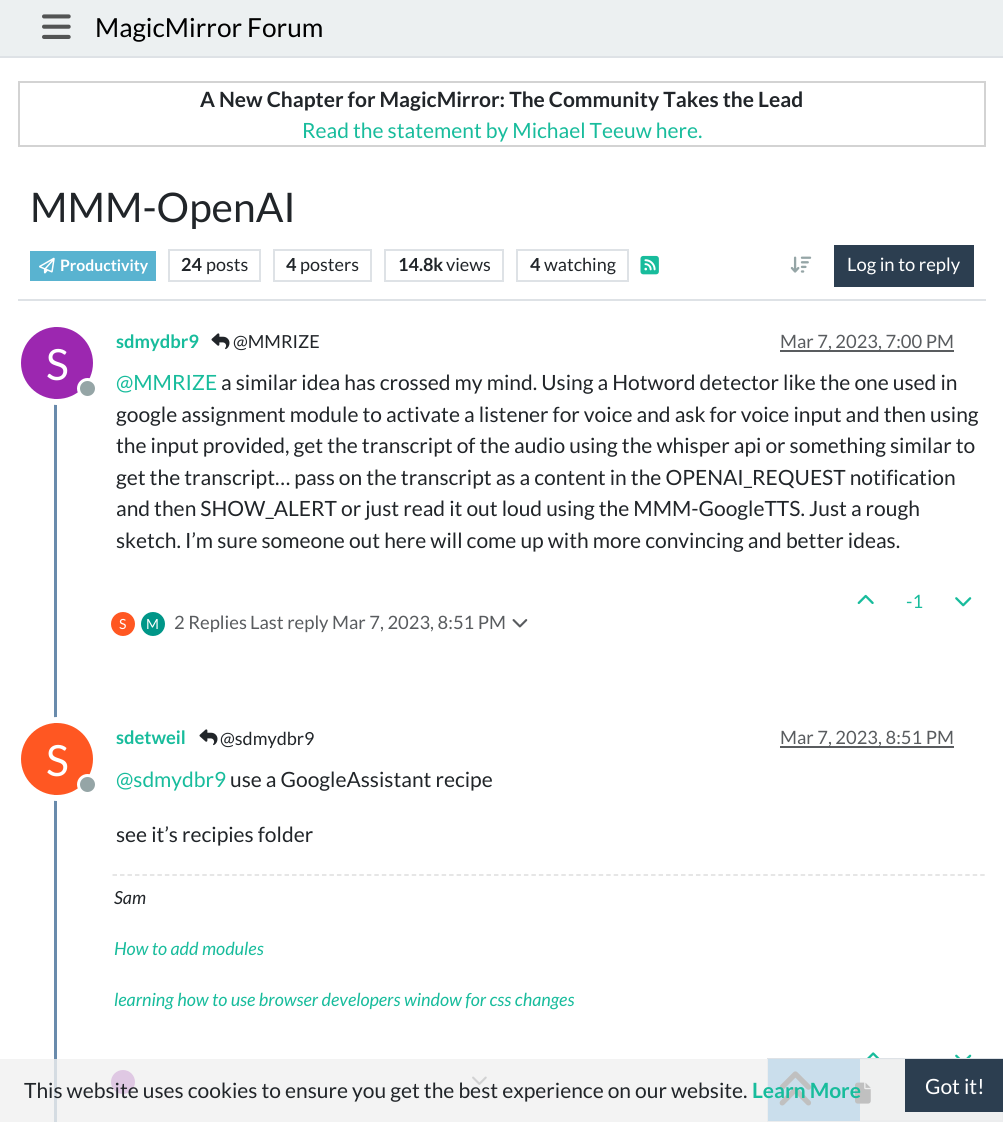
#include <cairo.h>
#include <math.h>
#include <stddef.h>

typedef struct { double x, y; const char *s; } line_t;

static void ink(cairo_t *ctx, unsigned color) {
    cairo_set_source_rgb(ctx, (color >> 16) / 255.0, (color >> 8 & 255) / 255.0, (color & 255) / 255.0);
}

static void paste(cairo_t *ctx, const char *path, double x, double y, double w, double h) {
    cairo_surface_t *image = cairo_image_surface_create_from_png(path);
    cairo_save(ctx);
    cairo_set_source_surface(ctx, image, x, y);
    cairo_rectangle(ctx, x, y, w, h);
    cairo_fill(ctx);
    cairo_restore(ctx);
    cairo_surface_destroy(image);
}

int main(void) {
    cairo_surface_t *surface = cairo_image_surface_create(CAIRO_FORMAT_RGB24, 1003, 1122);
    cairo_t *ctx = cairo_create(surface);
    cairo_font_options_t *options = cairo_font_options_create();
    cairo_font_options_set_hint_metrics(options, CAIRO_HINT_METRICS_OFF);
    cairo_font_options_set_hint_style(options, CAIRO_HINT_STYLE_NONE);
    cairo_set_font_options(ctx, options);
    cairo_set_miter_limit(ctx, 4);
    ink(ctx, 0xFFFFFF);
    cairo_paint(ctx);
    ink(ctx, 0xECF0F1);
    cairo_rectangle(ctx, 0, 0, 1003, 56);
    cairo_fill(ctx);
    ink(ctx, 0xDEE2E6);
    cairo_rectangle(ctx, 0, 56, 1003, 2);
    cairo_fill(ctx);
    paste(ctx, "media/1.png", 42, 14, 29, 25);
    cairo_select_font_face(ctx, "Lato", CAIRO_FONT_SLANT_NORMAL, CAIRO_FONT_WEIGHT_NORMAL);
    cairo_set_font_size(ctx, 26.25);
    ink(ctx, 0x000000);
    cairo_move_to(ctx, 95, 37);
    cairo_show_text(ctx, "MagicMirror Forum");
    cairo_rectangle(ctx, 19, 82, 966, 64);
    ink(ctx, 0xD3D3D3);
    cairo_stroke(ctx);
    cairo_select_font_face(ctx, "Lato", CAIRO_FONT_SLANT_NORMAL, CAIRO_FONT_WEIGHT_BOLD);
    cairo_set_font_size(ctx, 21);
    ink(ctx, 0x212529);
    cairo_move_to(ctx, 200, 107);
    cairo_show_text(ctx, "A New Chapter for MagicMirror: The Community Takes the Lead");
    cairo_select_font_face(ctx, "Lato", CAIRO_FONT_SLANT_NORMAL, CAIRO_FONT_WEIGHT_NORMAL);
    ink(ctx, 0x18BC9C);
    cairo_move_to(ctx, 302, 138);
    cairo_show_text(ctx, "Read the statement by Michael Teeuw here.");
    ink(ctx, 0xDEE2E6);
    cairo_rectangle(ctx, 18, 299, 968, 2);
    cairo_fill(ctx);
    cairo_set_font_size(ctx, 40.75);
    ink(ctx, 0x212529);
    cairo_move_to(ctx, 30, 222);
    cairo_show_text(ctx, "MMM-OpenAI");
    ink(ctx, 0x59B3D0);
    cairo_rectangle(ctx, 30, 251, 126, 30);
    cairo_fill(ctx);
    paste(ctx, "media/2.png", 39, 257, 16, 17);
    cairo_select_font_face(ctx, "Lato", CAIRO_FONT_SLANT_NORMAL, CAIRO_FONT_WEIGHT_BOLD);
    cairo_set_font_size(ctx, 15.75);
    ink(ctx, 0xFFFFFF);
    cairo_move_to(ctx, 60, 271);
    cairo_show_text(ctx, "Productivity");
    cairo_rectangle(ctx, 169, 250, 91, 31);
    ink(ctx, 0xDEE2E6);
    cairo_stroke(ctx);
    cairo_set_font_size(ctx, 18);
    ink(ctx, 0x212529);
    cairo_move_to(ctx, 181, 271);
    cairo_show_text(ctx, "24");
    cairo_select_font_face(ctx, "Lato", CAIRO_FONT_SLANT_NORMAL, CAIRO_FONT_WEIGHT_NORMAL);
    cairo_move_to(ctx, 206, 271);
    cairo_show_text(ctx, "posts");
    cairo_rectangle(ctx, 274, 250, 97, 31);
    ink(ctx, 0xDEE2E6);
    cairo_stroke(ctx);
    cairo_select_font_face(ctx, "Lato", CAIRO_FONT_SLANT_NORMAL, CAIRO_FONT_WEIGHT_BOLD);
    ink(ctx, 0x212529);
    cairo_move_to(ctx, 286, 271);
    cairo_show_text(ctx, "4");
    cairo_select_font_face(ctx, "Lato", CAIRO_FONT_SLANT_NORMAL, CAIRO_FONT_WEIGHT_NORMAL);
    cairo_move_to(ctx, 300, 271);
    cairo_show_text(ctx, "posters");
    cairo_rectangle(ctx, 385, 250, 118, 31);
    ink(ctx, 0xDEE2E6);
    cairo_stroke(ctx);
    cairo_select_font_face(ctx, "Lato", CAIRO_FONT_SLANT_NORMAL, CAIRO_FONT_WEIGHT_BOLD);
    ink(ctx, 0x212529);
    cairo_move_to(ctx, 398, 271);
    cairo_show_text(ctx, "14.8k");
    cairo_select_font_face(ctx, "Lato", CAIRO_FONT_SLANT_NORMAL, CAIRO_FONT_WEIGHT_NORMAL);
    cairo_move_to(ctx, 446, 271);
    cairo_show_text(ctx, "views");
    cairo_rectangle(ctx, 517, 250, 111, 31);
    ink(ctx, 0xDEE2E6);
    cairo_stroke(ctx);
    cairo_select_font_face(ctx, "Lato", CAIRO_FONT_SLANT_NORMAL, CAIRO_FONT_WEIGHT_BOLD);
    ink(ctx, 0x212529);
    cairo_move_to(ctx, 530, 271);
    cairo_show_text(ctx, "4");
    cairo_select_font_face(ctx, "Lato", CAIRO_FONT_SLANT_NORMAL, CAIRO_FONT_WEIGHT_NORMAL);
    cairo_move_to(ctx, 544, 271);
    cairo_show_text(ctx, "watching");
    paste(ctx, "media/3.png", 640, 255, 19, 20);
    paste(ctx, "media/4.png", 790, 256, 22, 17);
    ink(ctx, 0x2C3E50);
    cairo_rectangle(ctx, 834, 245, 140, 42);
    cairo_fill(ctx);
    cairo_set_font_size(ctx, 18.4);
    ink(ctx, 0xFFFFFF);
    cairo_move_to(ctx, 847, 271);
    cairo_show_text(ctx, "Log in to reply");
    ink(ctx, 0x698BAC);
    cairo_rectangle(ctx, 54, 324, 3, 798);
    cairo_fill(ctx);
    cairo_select_font_face(ctx, "Lato", CAIRO_FONT_SLANT_NORMAL, CAIRO_FONT_WEIGHT_BOLD);
    ink(ctx, 0x18BC9C);
    cairo_move_to(ctx, 116, 348);
    cairo_show_text(ctx, "sdmydbr9");
    paste(ctx, "media/5.png", 211, 333, 19, 17);
    cairo_select_font_face(ctx, "Lato", CAIRO_FONT_SLANT_NORMAL, CAIRO_FONT_WEIGHT_NORMAL);
    cairo_set_font_size(ctx, 18);
    ink(ctx, 0x212529);
    cairo_move_to(ctx, 233, 348);
    cairo_show_text(ctx, "@MMRIZE");
    ink(ctx, 0x595C5F);
    cairo_rectangle(ctx, 780, 350, 174, 2);
    cairo_fill(ctx);
    cairo_set_font_size(ctx, 18.4);
    cairo_move_to(ctx, 780, 348);
    cairo_show_text(ctx, "Mar 7, 2023, 7:00 PM");
    cairo_new_path(ctx);
    cairo_arc(ctx, 57, 363, 39, 0, 2 * M_PI);
    ink(ctx, 0xFFFFFF);
    cairo_set_line_width(ctx, 6);
    cairo_stroke(ctx);
    ink(ctx, 0x9C27B0);
    cairo_arc(ctx, 57, 363, 36, 0, 2 * M_PI);
    cairo_fill(ctx);
    cairo_set_font_size(ctx, 43);
    ink(ctx, 0xFFFFFF);
    cairo_move_to(ctx, 46, 380);
    cairo_show_text(ctx, "S");
    ink(ctx, 0x95A5A6);
    cairo_new_path(ctx);
    cairo_arc(ctx, 87.5, 388.5, 9, 0, 2 * M_PI);
    cairo_fill_preserve(ctx);
    ink(ctx, 0xFFFFFF);
    cairo_set_line_width(ctx, 3);
    cairo_stroke(ctx);
    cairo_set_font_size(ctx, 21);
    ink(ctx, 0x18BC9C);
    cairo_move_to(ctx, 116, 390);
    cairo_show_text(ctx, "@MMRIZE");
    ink(ctx, 0x212529);
    {
        static const line_t items[] = {
            {221, 390, "a similar idea has crossed my mind. Using a Hotword detector like the one used in"},
            {116, 422, "google assignment module to activate a listener for voice and ask for voice input and then using"},
            {116, 453, "the input provided, get the transcript of the audio using the whisper api or something similar to"},
            {116, 485, "get the transcript… pass on the transcript as a content in the OPENAI_REQUEST notification"},
            {116, 516, "and then SHOW_ALERT or just read it out loud using the MMM-GoogleTTS. Just a rough"},
            {116, 548, "sketch. I’m sure someone out here will come up with more convincing and better ideas."},
        };
        for (size_t i = 0; i < sizeof items / sizeof *items; i++) {
            cairo_move_to(ctx, items[i].x, items[i].y);
            cairo_show_text(ctx, items[i].s);
        }
    }
    paste(ctx, "media/6.png", 857, 594, 17, 10);
    cairo_set_font_size(ctx, 18.4);
    ink(ctx, 0x18BC9C);
    cairo_move_to(ctx, 906, 608);
    cairo_show_text(ctx, "-1");
    paste(ctx, "media/7.png", 955, 597, 17, 10);
    ink(ctx, 0xFF5722);
    cairo_arc(ctx, 123, 624, 12, 0, 2 * M_PI);
    cairo_fill(ctx);
    cairo_set_font_size(ctx, 14);
    ink(ctx, 0xFFFFFF);
    cairo_move_to(ctx, 119, 629);
    cairo_show_text(ctx, "S");
    ink(ctx, 0x009688);
    cairo_new_path(ctx);
    cairo_arc(ctx, 153, 624, 12, 0, 2 * M_PI);
    cairo_fill(ctx);
    ink(ctx, 0xFFFFFF);
    cairo_move_to(ctx, 146, 629);
    cairo_show_text(ctx, "M");
    cairo_set_font_size(ctx, 18.4);
    ink(ctx, 0x595C5F);
    cairo_move_to(ctx, 174, 629);
    cairo_show_text(ctx, "2 Replies");
    cairo_move_to(ctx, 250, 629);
    cairo_show_text(ctx, "Last reply Mar 7, 2023, 8:51 PM");
    paste(ctx, "media/8.png", 512, 619, 16, 9);
    cairo_select_font_face(ctx, "Lato", CAIRO_FONT_SLANT_NORMAL, CAIRO_FONT_WEIGHT_BOLD);
    ink(ctx, 0x18BC9C);
    cairo_move_to(ctx, 116, 744);
    cairo_show_text(ctx, "sdetweil");
    paste(ctx, "media/5.png", 199, 729, 19, 17);
    cairo_select_font_face(ctx, "Lato", CAIRO_FONT_SLANT_NORMAL, CAIRO_FONT_WEIGHT_NORMAL);
    cairo_set_font_size(ctx, 18);
    ink(ctx, 0x212529);
    cairo_move_to(ctx, 220, 745);
    cairo_show_text(ctx, "@sdmydbr9");
    ink(ctx, 0x595C5F);
    cairo_rectangle(ctx, 780, 746, 174, 2);
    cairo_fill(ctx);
    cairo_set_font_size(ctx, 18.4);
    cairo_move_to(ctx, 780, 744);
    cairo_show_text(ctx, "Mar 7, 2023, 8:51 PM");
    cairo_new_path(ctx);
    cairo_arc(ctx, 57, 759, 39, 0, 2 * M_PI);
    ink(ctx, 0xFFFFFF);
    cairo_set_line_width(ctx, 6);
    cairo_stroke(ctx);
    ink(ctx, 0xFF5722);
    cairo_arc(ctx, 57, 759, 36, 0, 2 * M_PI);
    cairo_fill(ctx);
    cairo_set_font_size(ctx, 43);
    ink(ctx, 0xFFFFFF);
    cairo_move_to(ctx, 46, 776);
    cairo_show_text(ctx, "S");
    ink(ctx, 0x95A5A6);
    cairo_new_path(ctx);
    cairo_arc(ctx, 87.5, 784.5, 9, 0, 2 * M_PI);
    cairo_fill_preserve(ctx);
    ink(ctx, 0xFFFFFF);
    cairo_set_line_width(ctx, 3);
    cairo_stroke(ctx);
    cairo_set_font_size(ctx, 21);
    ink(ctx, 0x18BC9C);
    cairo_move_to(ctx, 116, 787);
    cairo_show_text(ctx, "@sdmydbr9");
    ink(ctx, 0x212529);
    cairo_move_to(ctx, 230, 787);
    cairo_show_text(ctx, "use a GoogleAssistant recipe");
    cairo_move_to(ctx, 116, 842);
    cairo_show_text(ctx, "see it’s recipies folder");
    cairo_new_path(ctx);
    cairo_move_to(ctx, 112.5, 875);
    cairo_line_to(ctx, 985.5, 875);
    ink(ctx, 0xDEDEDE);
    cairo_set_line_width(ctx, 1.5);
    cairo_set_dash(ctx, (double[]){4.5, 2.98}, 2, 0);
    cairo_stroke(ctx);
    cairo_select_font_face(ctx, "Lato", CAIRO_FONT_SLANT_ITALIC, CAIRO_FONT_WEIGHT_NORMAL);
    cairo_set_font_size(ctx, 18);
    ink(ctx, 0x212529);
    cairo_move_to(ctx, 114, 904);
    cairo_show_text(ctx, "Sam");
    ink(ctx, 0x18BC9C);
    cairo_move_to(ctx, 114, 955);
    cairo_show_text(ctx, "How to add modules");
    cairo_move_to(ctx, 114, 1006);
    cairo_show_text(ctx, "learning how to use browser developers window for css changes");
    paste(ctx, "media/9.png", 867, 1052, 13, 6);
    paste(ctx, "media/10.png", 955, 1054, 17, 4);
    ink(ctx, 0x9C27B0);
    cairo_arc(ctx, 123, 1082, 12, 0, 2 * M_PI);
    cairo_fill(ctx);
    paste(ctx, "media/11.png", 472, 1076, 15, 9);
    ink(ctx, 0xECF0F1);
    cairo_rectangle(ctx, 860, 1060, 142, 60);
    cairo_fill(ctx);
    cairo_rectangle(ctx, 768, 1059, 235, 62);
    ink(ctx, 0xDEE2E6);
    cairo_set_line_width(ctx, 2);
    cairo_set_dash(ctx, NULL, 0, 0);
    cairo_stroke(ctx);
    ink(ctx, 0x3498DB);
    cairo_rectangle(ctx, 768, 1059, 92, 62);
    cairo_fill(ctx);
    paste(ctx, "media/12.png", 779, 1071, 33, 35);
    paste(ctx, "media/13.png", 855, 1082, 16, 22);
    cairo_set_source_rgba(ctx, 0.941, 0.941, 0.941, 0.8);
    cairo_rectangle(ctx, 0, 1059, 1003, 63);
    cairo_fill(ctx);
    cairo_select_font_face(ctx, "Lato", CAIRO_FONT_SLANT_NORMAL, CAIRO_FONT_WEIGHT_NORMAL);
    cairo_set_font_size(ctx, 21);
    ink(ctx, 0x212529);
    cairo_move_to(ctx, 24, 1098);
    cairo_show_text(ctx, "This website uses cookies to ensure you get the best experience on our website.");
    cairo_select_font_face(ctx, "Lato", CAIRO_FONT_SLANT_NORMAL, CAIRO_FONT_WEIGHT_BOLD);
    ink(ctx, 0x18BC9C);
    cairo_move_to(ctx, 752, 1098);
    cairo_show_text(ctx, "Learn More");
    ink(ctx, 0x2C3E50);
    cairo_rectangle(ctx, 905, 1059, 98, 53);
    cairo_fill(ctx);
    cairo_select_font_face(ctx, "Lato", CAIRO_FONT_SLANT_NORMAL, CAIRO_FONT_WEIGHT_NORMAL);
    ink(ctx, 0xFFFFFF);
    cairo_move_to(ctx, 925, 1094);
    cairo_show_text(ctx, "Got it!");
    cairo_surface_write_to_png(surface, "image.png");
    cairo_font_options_destroy(options);
    cairo_destroy(ctx);
    cairo_surface_destroy(surface);
    return 0;
}
